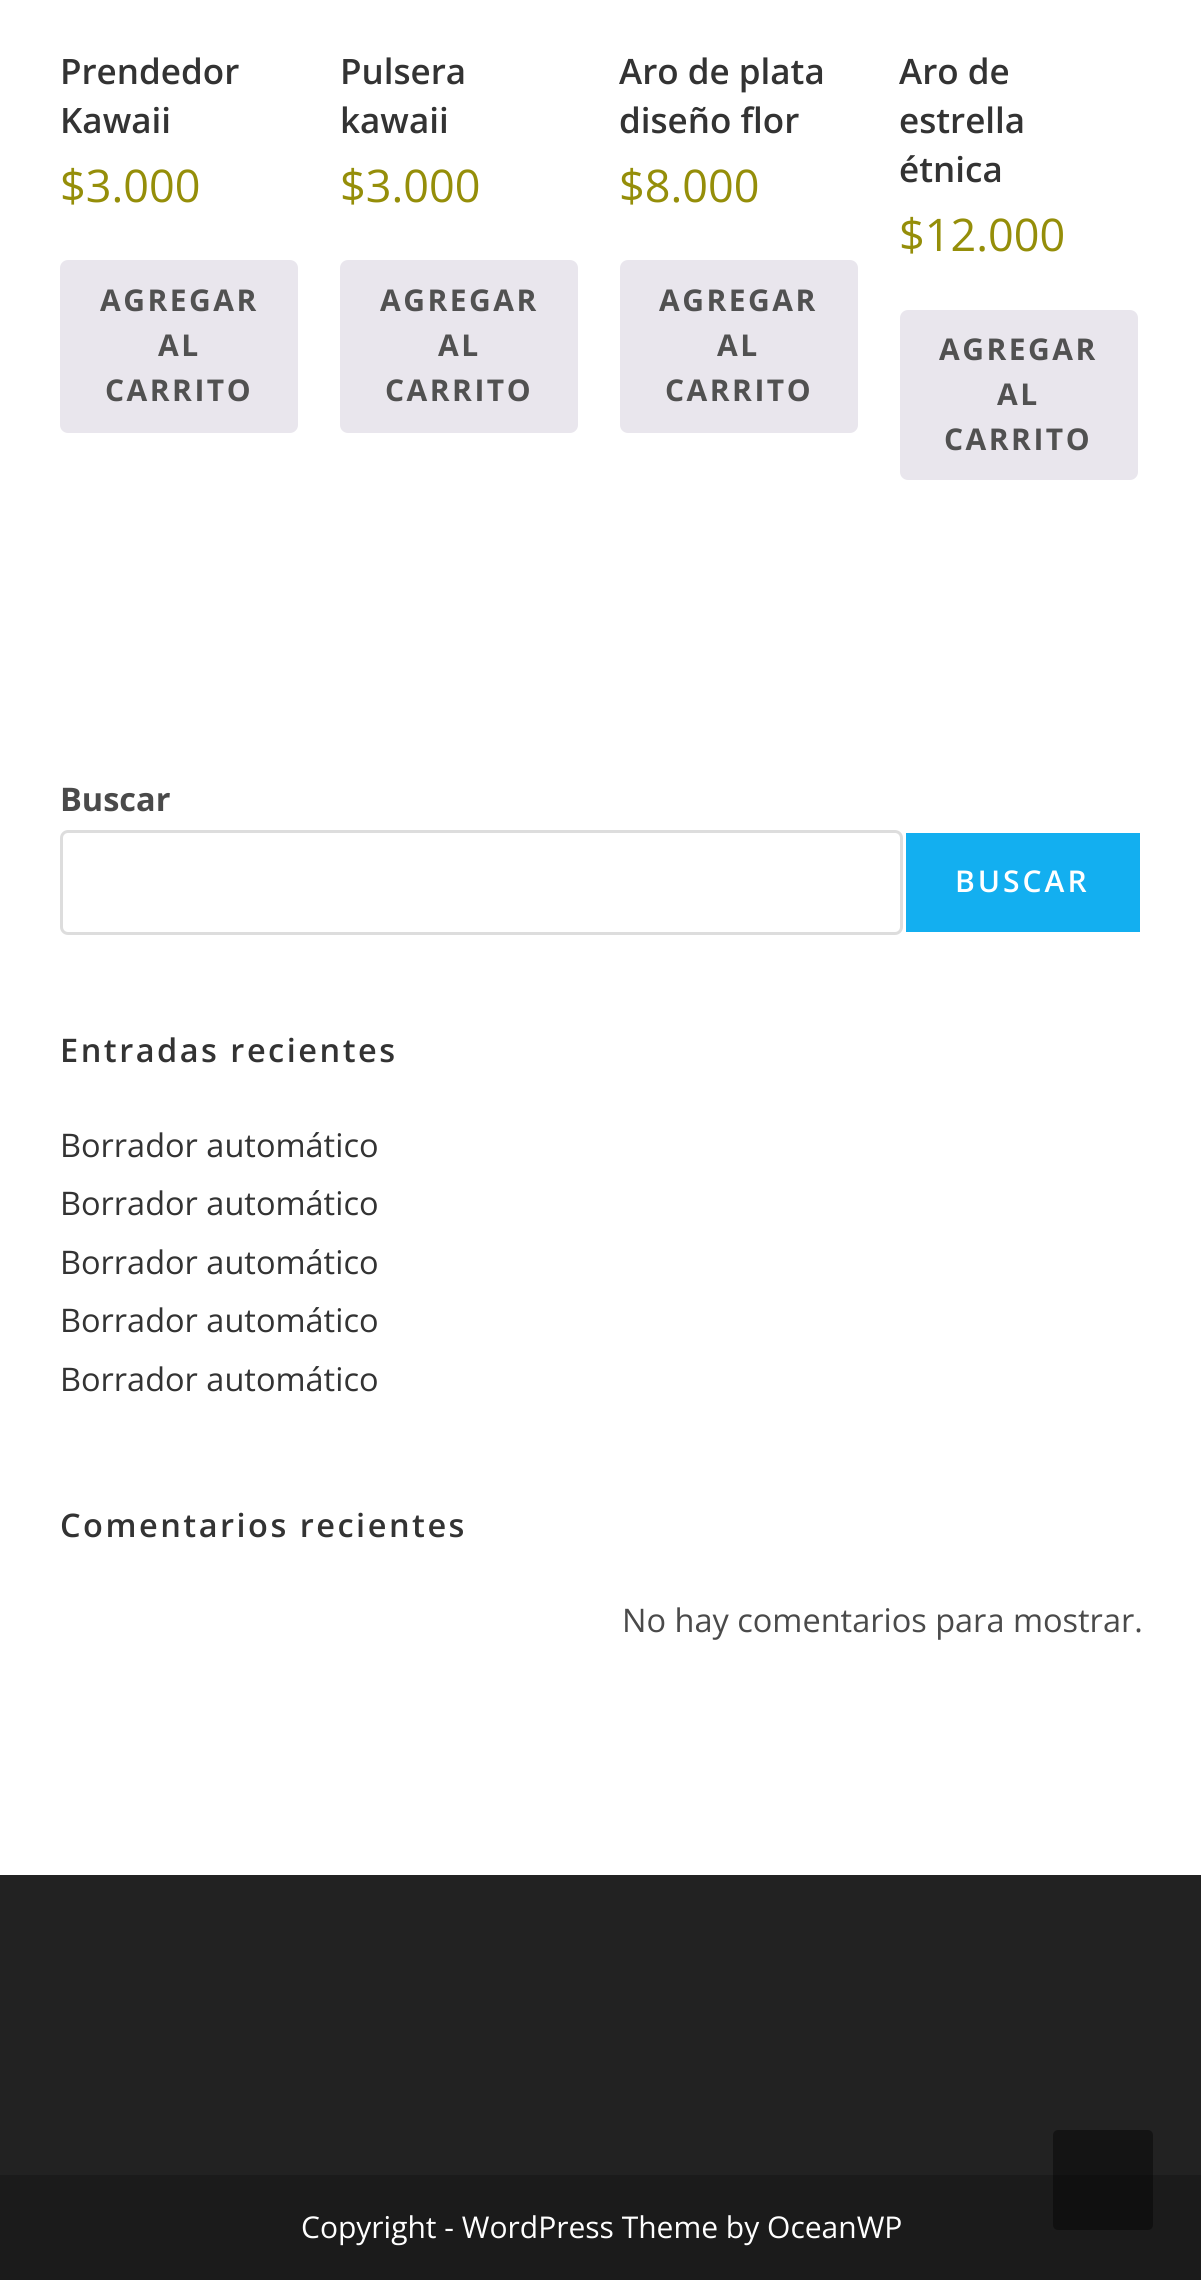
#include <cairo.h>
#include <math.h>
#include <stddef.h>

typedef struct { double x, y; const char *s; } line_t;

static void ink(cairo_t *ctx, unsigned color) {
    cairo_set_source_rgb(ctx, (color >> 16) / 255.0, (color >> 8 & 255) / 255.0, (color & 255) / 255.0);
}

static void write_spaced(cairo_t *ctx, double x, double y, const char *s, double letter, double word) {
    cairo_move_to(ctx, x, y);
    while (*s) {
        char ch[5] = {0};
        int n = 0;
        do ch[n++] = *s++; while ((*s & 0xC0) == 0x80);
        cairo_show_text(ctx, ch);
        cairo_rel_move_to(ctx, letter + word * (*ch == ' '), 0);
    }
}

static void round_path(cairo_t *ctx, double x, double y, double w, double h, double r) {
    cairo_new_sub_path(ctx);
    cairo_arc(ctx, x + w - r, y + h - r, r, 0, M_PI / 2);
    cairo_arc(ctx, x + r, y + h - r, r, M_PI / 2, M_PI);
    cairo_arc(ctx, x + r, y + r, r, M_PI, 1.5 * M_PI);
    cairo_arc(ctx, x + w - r, y + r, r, 1.5 * M_PI, 2 * M_PI);
    cairo_close_path(ctx);
}

int main(void) {
    cairo_surface_t *surface = cairo_image_surface_create(CAIRO_FORMAT_RGB24, 1201, 2280);
    cairo_t *ctx = cairo_create(surface);
    cairo_font_options_t *options = cairo_font_options_create();
    cairo_font_options_set_hint_metrics(options, CAIRO_HINT_METRICS_OFF);
    cairo_font_options_set_hint_style(options, CAIRO_HINT_STYLE_NONE);
    cairo_set_font_options(ctx, options);
    cairo_set_miter_limit(ctx, 4);
    ink(ctx, 0xFFFFFF);
    cairo_paint(ctx);
    cairo_select_font_face(ctx, "Open Sans SemiBold", CAIRO_FONT_SLANT_NORMAL, CAIRO_FONT_WEIGHT_NORMAL);
    cairo_set_font_size(ctx, 35);
    ink(ctx, 0x333333);
    cairo_move_to(ctx, 60, 84);
    cairo_show_text(ctx, "Prendedor");
    cairo_move_to(ctx, 60, 133);
    cairo_show_text(ctx, "Kawaii");
    cairo_select_font_face(ctx, "Open Sans", CAIRO_FONT_SLANT_NORMAL, CAIRO_FONT_WEIGHT_NORMAL);
    cairo_set_font_size(ctx, 45);
    ink(ctx, 0x958E09);
    cairo_move_to(ctx, 60, 202);
    cairo_show_text(ctx, "$3.000");
    ink(ctx, 0xE9E6ED);
    round_path(ctx, 60, 260, 238, 173, 8);
    cairo_fill(ctx);
    cairo_select_font_face(ctx, "Open Sans", CAIRO_FONT_SLANT_NORMAL, CAIRO_FONT_WEIGHT_BOLD);
    cairo_set_font_size(ctx, 30);
    ink(ctx, 0x515151);
    {
        static const line_t items[] = {
            {100, 311, "AGREGAR"},
            {158, 356, "AL"},
            {105, 401, "CARRITO"},
        };
        for (size_t i = 0; i < sizeof items / sizeof *items; i++) {
            write_spaced(ctx, items[i].x, items[i].y, items[i].s, 2.5, 0);
        }
    }
    cairo_select_font_face(ctx, "Open Sans SemiBold", CAIRO_FONT_SLANT_NORMAL, CAIRO_FONT_WEIGHT_NORMAL);
    cairo_set_font_size(ctx, 35);
    ink(ctx, 0x333333);
    cairo_move_to(ctx, 340, 84);
    cairo_show_text(ctx, "Pulsera");
    cairo_move_to(ctx, 340, 133);
    cairo_show_text(ctx, "kawaii");
    cairo_select_font_face(ctx, "Open Sans", CAIRO_FONT_SLANT_NORMAL, CAIRO_FONT_WEIGHT_NORMAL);
    cairo_set_font_size(ctx, 45);
    ink(ctx, 0x958E09);
    cairo_move_to(ctx, 340, 202);
    cairo_show_text(ctx, "$3.000");
    ink(ctx, 0xE9E6ED);
    round_path(ctx, 340, 260, 238, 173, 8);
    cairo_fill(ctx);
    cairo_select_font_face(ctx, "Open Sans", CAIRO_FONT_SLANT_NORMAL, CAIRO_FONT_WEIGHT_BOLD);
    cairo_set_font_size(ctx, 30);
    ink(ctx, 0x515151);
    {
        static const line_t items[] = {
            {380, 311, "AGREGAR"},
            {438, 356, "AL"},
            {385, 401, "CARRITO"},
        };
        for (size_t i = 0; i < sizeof items / sizeof *items; i++) {
            write_spaced(ctx, items[i].x, items[i].y, items[i].s, 2.5, 0);
        }
    }
    cairo_select_font_face(ctx, "Open Sans SemiBold", CAIRO_FONT_SLANT_NORMAL, CAIRO_FONT_WEIGHT_NORMAL);
    cairo_set_font_size(ctx, 35);
    ink(ctx, 0x333333);
    cairo_move_to(ctx, 619, 84);
    cairo_show_text(ctx, "Aro de plata");
    cairo_move_to(ctx, 619, 133);
    cairo_show_text(ctx, "diseño flor");
    cairo_select_font_face(ctx, "Open Sans", CAIRO_FONT_SLANT_NORMAL, CAIRO_FONT_WEIGHT_NORMAL);
    cairo_set_font_size(ctx, 45);
    ink(ctx, 0x958E09);
    cairo_move_to(ctx, 619, 202);
    cairo_show_text(ctx, "$8.000");
    ink(ctx, 0xE9E6ED);
    round_path(ctx, 620, 260, 238, 173, 8);
    cairo_fill(ctx);
    cairo_select_font_face(ctx, "Open Sans", CAIRO_FONT_SLANT_NORMAL, CAIRO_FONT_WEIGHT_BOLD);
    cairo_set_font_size(ctx, 30);
    ink(ctx, 0x515151);
    {
        static const line_t items[] = {
            {659, 311, "AGREGAR"},
            {717, 356, "AL"},
            {665, 401, "CARRITO"},
        };
        for (size_t i = 0; i < sizeof items / sizeof *items; i++) {
            write_spaced(ctx, items[i].x, items[i].y, items[i].s, 2.5, 0);
        }
    }
    cairo_select_font_face(ctx, "Open Sans SemiBold", CAIRO_FONT_SLANT_NORMAL, CAIRO_FONT_WEIGHT_NORMAL);
    cairo_set_font_size(ctx, 35);
    ink(ctx, 0x333333);
    {
        static const line_t items[] = {
            {899, 84, "Aro de"},
            {899, 133, "estrella"},
            {899, 182, "étnica"},
        };
        for (size_t i = 0; i < sizeof items / sizeof *items; i++) {
            cairo_move_to(ctx, items[i].x, items[i].y);
            cairo_show_text(ctx, items[i].s);
        }
    }
    cairo_select_font_face(ctx, "Open Sans", CAIRO_FONT_SLANT_NORMAL, CAIRO_FONT_WEIGHT_NORMAL);
    cairo_set_font_size(ctx, 45);
    ink(ctx, 0x958E09);
    cairo_move_to(ctx, 899, 251);
    cairo_show_text(ctx, "$12.000");
    ink(ctx, 0xE9E6ED);
    round_path(ctx, 900, 310, 238, 170, 8);
    cairo_fill(ctx);
    cairo_select_font_face(ctx, "Open Sans", CAIRO_FONT_SLANT_NORMAL, CAIRO_FONT_WEIGHT_BOLD);
    cairo_set_font_size(ctx, 30);
    ink(ctx, 0x515151);
    {
        static const line_t items[] = {
            {939, 360, "AGREGAR"},
            {997, 405, "AL"},
            {944, 450, "CARRITO"},
        };
        for (size_t i = 0; i < sizeof items / sizeof *items; i++) {
            write_spaced(ctx, items[i].x, items[i].y, items[i].s, 2.5, 0);
        }
    }
    cairo_set_font_size(ctx, 32.5);
    ink(ctx, 0x4A4A4A);
    cairo_move_to(ctx, 60, 811);
    cairo_show_text(ctx, "Buscar");
    round_path(ctx, 61.5, 831.5, 840, 102, 6.5);
    ink(ctx, 0xDDDDDD);
    cairo_set_line_width(ctx, 3);
    cairo_stroke(ctx);
    ink(ctx, 0x13AFF0);
    cairo_rectangle(ctx, 906, 833, 234, 99);
    cairo_fill(ctx);
    cairo_select_font_face(ctx, "Open Sans SemiBold", CAIRO_FONT_SLANT_NORMAL, CAIRO_FONT_WEIGHT_NORMAL);
    cairo_set_font_size(ctx, 30);
    ink(ctx, 0xFFFFFF);
    write_spaced(ctx, 955, 892, "BUSCAR", 3, 0);
    cairo_set_font_size(ctx, 32.5);
    ink(ctx, 0x333333);
    write_spaced(ctx, 60, 1062, "Entradas recientes", 2.5, 0);
    cairo_select_font_face(ctx, "Open Sans", CAIRO_FONT_SLANT_NORMAL, CAIRO_FONT_WEIGHT_NORMAL);
    {
        static const line_t items[] = {
            {60, 1157, "Borrador automático"},
            {60, 1215, "Borrador automático"},
            {60, 1274, "Borrador automático"},
            {60, 1332, "Borrador automático"},
            {60, 1391, "Borrador automático"},
        };
        for (size_t i = 0; i < sizeof items / sizeof *items; i++) {
            cairo_move_to(ctx, items[i].x, items[i].y);
            cairo_show_text(ctx, items[i].s);
        }
    }
    cairo_select_font_face(ctx, "Open Sans SemiBold", CAIRO_FONT_SLANT_NORMAL, CAIRO_FONT_WEIGHT_NORMAL);
    write_spaced(ctx, 60, 1537, "Comentarios recientes", 2.5, 0);
    cairo_select_font_face(ctx, "Open Sans", CAIRO_FONT_SLANT_NORMAL, CAIRO_FONT_WEIGHT_NORMAL);
    ink(ctx, 0x4A4A4A);
    cairo_move_to(ctx, 622, 1632);
    cairo_show_text(ctx, "No hay comentarios para mostrar.");
    ink(ctx, 0x222222);
    cairo_rectangle(ctx, 0, 1875, 1201, 300);
    cairo_fill(ctx);
    ink(ctx, 0x1B1B1B);
    cairo_rectangle(ctx, 0, 2175, 1201, 105);
    cairo_fill(ctx);
    cairo_set_font_size(ctx, 30);
    ink(ctx, 0xFFFFFF);
    cairo_move_to(ctx, 301, 2238);
    cairo_show_text(ctx, "Copyright - WordPress Theme by OceanWP");
    cairo_set_source_rgba(ctx, 0, 0, 0, 0.4);
    round_path(ctx, 1053, 2130, 100, 100, 5);
    cairo_fill(ctx);
    cairo_surface_write_to_png(surface, "image.png");
    cairo_font_options_destroy(options);
    cairo_destroy(ctx);
    cairo_surface_destroy(surface);
    return 0;
}
